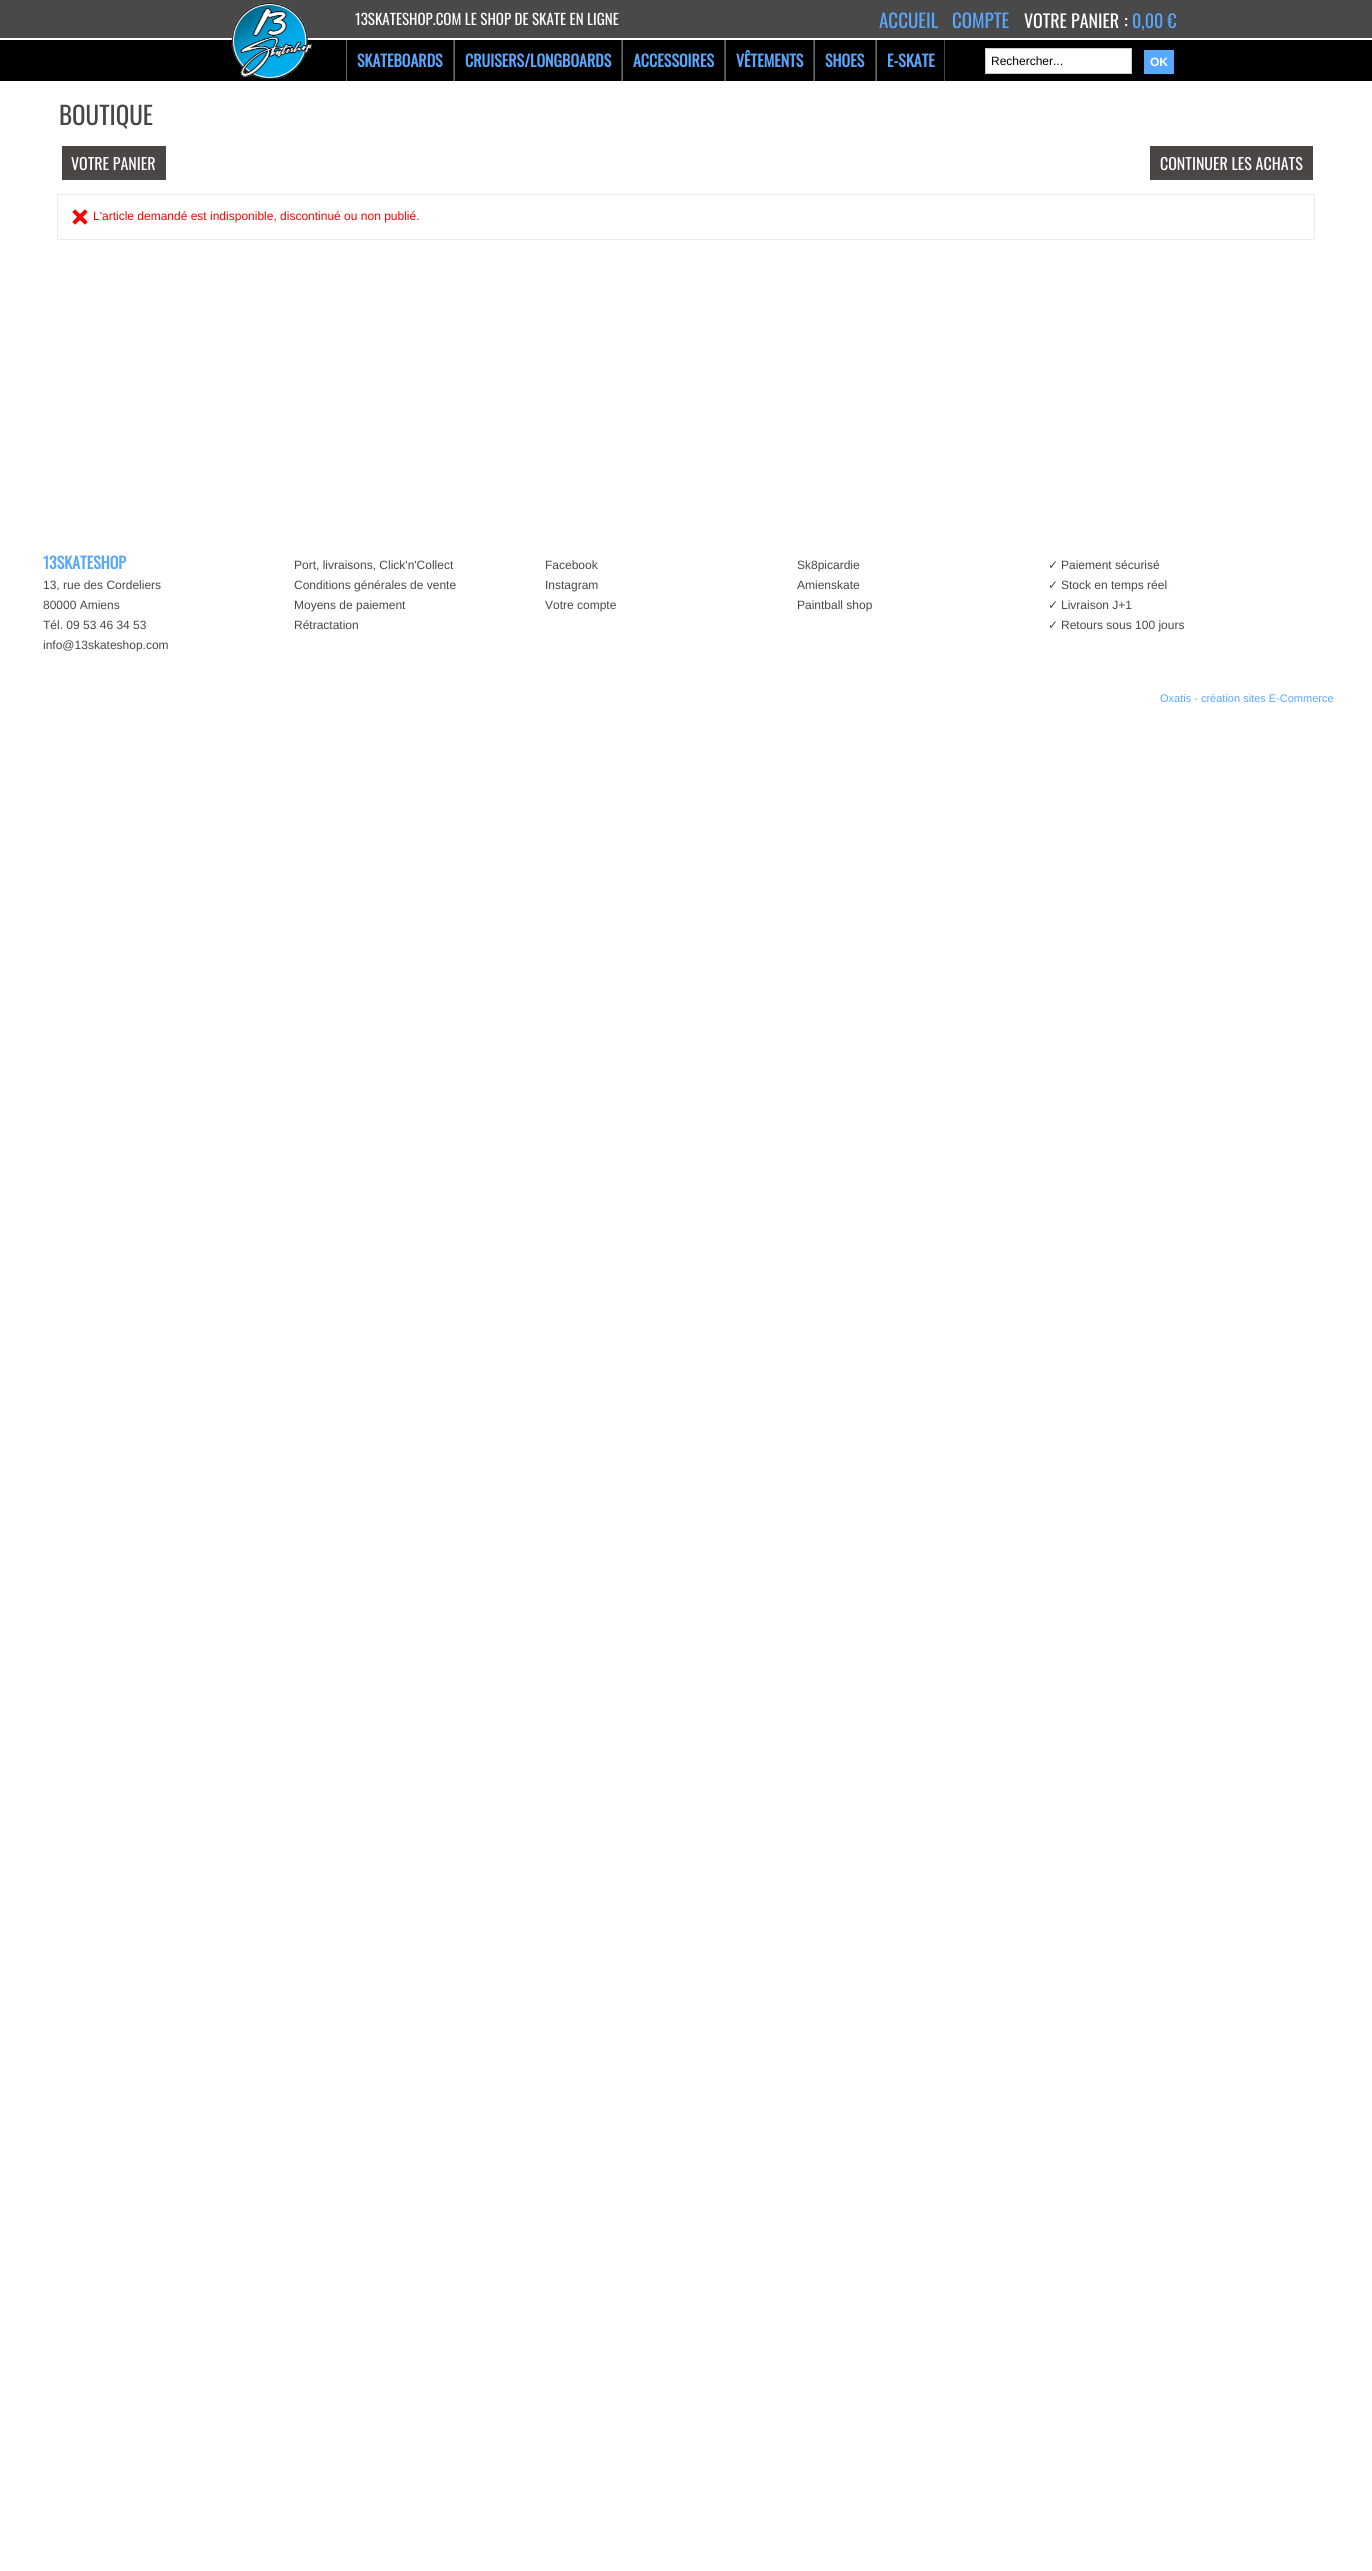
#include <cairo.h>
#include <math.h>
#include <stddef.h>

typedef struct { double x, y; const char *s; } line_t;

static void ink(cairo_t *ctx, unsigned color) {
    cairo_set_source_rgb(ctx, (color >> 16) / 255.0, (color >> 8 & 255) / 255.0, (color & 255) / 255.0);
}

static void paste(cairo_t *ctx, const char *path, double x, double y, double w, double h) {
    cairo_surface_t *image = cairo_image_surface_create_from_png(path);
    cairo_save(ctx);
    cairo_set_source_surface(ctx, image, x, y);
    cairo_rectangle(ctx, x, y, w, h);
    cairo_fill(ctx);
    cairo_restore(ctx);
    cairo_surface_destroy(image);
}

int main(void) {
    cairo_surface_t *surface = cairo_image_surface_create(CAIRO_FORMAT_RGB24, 1372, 2571);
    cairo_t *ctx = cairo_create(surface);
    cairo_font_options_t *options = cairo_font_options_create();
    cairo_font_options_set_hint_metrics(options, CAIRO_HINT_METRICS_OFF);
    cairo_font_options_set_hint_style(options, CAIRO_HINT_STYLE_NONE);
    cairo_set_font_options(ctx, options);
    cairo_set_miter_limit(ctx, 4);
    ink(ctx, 0xFFFFFF);
    cairo_paint(ctx);
    paste(ctx, "media/1.png", 0, 0, 1372, 81);
    paste(ctx, "media/2.png", 231, 2, 81, 78);
    cairo_select_font_face(ctx, "Oswald", CAIRO_FONT_SLANT_NORMAL, CAIRO_FONT_WEIGHT_NORMAL);
    cairo_set_font_size(ctx, 15);
    ink(ctx, 0xFFFFFF);
    cairo_move_to(ctx, 355, 25);
    cairo_show_text(ctx, "13SKATESHOP.COM LE SHOP DE SKATE EN LIGNE");
    cairo_set_font_size(ctx, 19);
    ink(ctx, 0x58A7FD);
    cairo_move_to(ctx, 879, 28);
    cairo_show_text(ctx, "ACCUEIL");
    cairo_move_to(ctx, 952, 28);
    cairo_show_text(ctx, "COMPTE");
    cairo_set_font_size(ctx, 18);
    ink(ctx, 0xFFFFFF);
    cairo_move_to(ctx, 1024, 28);
    cairo_show_text(ctx, "VOTRE PANIER");
    cairo_set_font_size(ctx, 19);
    cairo_move_to(ctx, 1124, 28);
    cairo_show_text(ctx, ":");
    cairo_set_font_size(ctx, 18);
    ink(ctx, 0x58A7FD);
    cairo_move_to(ctx, 1132, 28);
    cairo_show_text(ctx, "0,00 €");
    ink(ctx, 0xFFFFFF);
    cairo_rectangle(ctx, 985.5, 48.5, 146, 25);
    cairo_fill_preserve(ctx);
    ink(ctx, 0xCCCCCC);
    cairo_set_line_width(ctx, 1);
    cairo_stroke(ctx);
    cairo_select_font_face(ctx, "Liberation Sans", CAIRO_FONT_SLANT_NORMAL, CAIRO_FONT_WEIGHT_NORMAL);
    cairo_set_font_size(ctx, 12);
    ink(ctx, 0x000000);
    cairo_move_to(ctx, 991, 65);
    cairo_show_text(ctx, "Rechercher...");
    ink(ctx, 0x59A8FF);
    cairo_rectangle(ctx, 1144, 50, 30, 24);
    cairo_fill(ctx);
    cairo_select_font_face(ctx, "Liberation Sans", CAIRO_FONT_SLANT_NORMAL, CAIRO_FONT_WEIGHT_BOLD);
    ink(ctx, 0xFFFFFF);
    cairo_move_to(ctx, 1150, 66);
    cairo_show_text(ctx, "OK");
    ink(ctx, 0x444444);
    cairo_rectangle(ctx, 453, 40, 1, 41);
    cairo_fill(ctx);
    ink(ctx, 0x666666);
    cairo_rectangle(ctx, 346, 40, 1, 41);
    cairo_fill(ctx);
    cairo_select_font_face(ctx, "Oswald", CAIRO_FONT_SLANT_NORMAL, CAIRO_FONT_WEIGHT_BOLD);
    cairo_set_font_size(ctx, 16);
    ink(ctx, 0x58A7FD);
    cairo_move_to(ctx, 357, 67);
    cairo_show_text(ctx, "SKATEBOARDS");
    ink(ctx, 0x444444);
    cairo_rectangle(ctx, 621, 40, 1, 41);
    cairo_fill(ctx);
    ink(ctx, 0x666666);
    cairo_rectangle(ctx, 454, 40, 1, 41);
    cairo_fill(ctx);
    ink(ctx, 0x58A7FD);
    cairo_move_to(ctx, 465, 67);
    cairo_show_text(ctx, "CRUISERS/LONGBOARDS");
    ink(ctx, 0x444444);
    cairo_rectangle(ctx, 724, 40, 1, 41);
    cairo_fill(ctx);
    ink(ctx, 0x666666);
    cairo_rectangle(ctx, 622, 40, 1, 41);
    cairo_fill(ctx);
    ink(ctx, 0x58A7FD);
    cairo_move_to(ctx, 633, 67);
    cairo_show_text(ctx, "ACCESSOIRES");
    ink(ctx, 0x444444);
    cairo_rectangle(ctx, 813, 40, 1, 41);
    cairo_fill(ctx);
    ink(ctx, 0x666666);
    cairo_rectangle(ctx, 725, 40, 1, 41);
    cairo_fill(ctx);
    ink(ctx, 0x58A7FD);
    cairo_move_to(ctx, 736, 67);
    cairo_show_text(ctx, "VÊTEMENTS");
    ink(ctx, 0x444444);
    cairo_rectangle(ctx, 875, 40, 1, 41);
    cairo_fill(ctx);
    ink(ctx, 0x666666);
    cairo_rectangle(ctx, 814, 40, 1, 41);
    cairo_fill(ctx);
    ink(ctx, 0x58A7FD);
    cairo_move_to(ctx, 825, 67);
    cairo_show_text(ctx, "SHOES");
    ink(ctx, 0x444444);
    cairo_rectangle(ctx, 944, 40, 1, 41);
    cairo_fill(ctx);
    ink(ctx, 0x666666);
    cairo_rectangle(ctx, 876, 40, 1, 41);
    cairo_fill(ctx);
    ink(ctx, 0x58A7FD);
    cairo_move_to(ctx, 887, 67);
    cairo_show_text(ctx, "E-SKATE");
    cairo_select_font_face(ctx, "Oswald", CAIRO_FONT_SLANT_NORMAL, CAIRO_FONT_WEIGHT_NORMAL);
    cairo_set_font_size(ctx, 25);
    ink(ctx, 0x4A4643);
    cairo_move_to(ctx, 59, 125);
    cairo_show_text(ctx, "BOUTIQUE");
    cairo_rectangle(ctx, 62, 146, 104, 34);
    cairo_fill(ctx);
    cairo_set_font_size(ctx, 16);
    ink(ctx, 0xFFFFFF);
    cairo_move_to(ctx, 71, 170);
    cairo_show_text(ctx, "VOTRE PANIER");
    ink(ctx, 0x4A4643);
    cairo_rectangle(ctx, 1150, 146, 163, 34);
    cairo_fill(ctx);
    ink(ctx, 0xFFFFFF);
    cairo_move_to(ctx, 1160, 170);
    cairo_show_text(ctx, "CONTINUER LES ACHATS");
    cairo_rectangle(ctx, 57.5, 194.5, 1257, 45);
    ink(ctx, 0xEBEBEB);
    cairo_stroke(ctx);
    paste(ctx, "media/3.png", 72, 209, 16, 16);
    cairo_select_font_face(ctx, "Liberation Sans", CAIRO_FONT_SLANT_NORMAL, CAIRO_FONT_WEIGHT_NORMAL);
    cairo_set_font_size(ctx, 12);
    ink(ctx, 0xFF0000);
    cairo_move_to(ctx, 93, 220);
    cairo_show_text(ctx, "L'article demandé est indisponible, discontinué ou non publié.");
    cairo_select_font_face(ctx, "Oswald", CAIRO_FONT_SLANT_NORMAL, CAIRO_FONT_WEIGHT_BOLD);
    cairo_set_font_size(ctx, 16);
    ink(ctx, 0x58A7FD);
    cairo_move_to(ctx, 43, 569);
    cairo_show_text(ctx, "13SKATESHOP");
    cairo_select_font_face(ctx, "Liberation Sans", CAIRO_FONT_SLANT_NORMAL, CAIRO_FONT_WEIGHT_NORMAL);
    cairo_set_font_size(ctx, 12);
    ink(ctx, 0x4A4643);
    {
        static const line_t items[] = {
            {294, 569, "Port, livraisons, Click'n'Collect"},
            {545, 569, "Facebook"},
            {797, 569, "Sk8picardie"},
        };
        for (size_t i = 0; i < sizeof items / sizeof *items; i++) {
            cairo_move_to(ctx, items[i].x, items[i].y);
            cairo_show_text(ctx, items[i].s);
        }
    }
    cairo_select_font_face(ctx, "DejaVu Sans", CAIRO_FONT_SLANT_NORMAL, CAIRO_FONT_WEIGHT_NORMAL);
    cairo_move_to(ctx, 1048, 569);
    cairo_show_text(ctx, "✓");
    cairo_select_font_face(ctx, "Liberation Sans", CAIRO_FONT_SLANT_NORMAL, CAIRO_FONT_WEIGHT_NORMAL);
    {
        static const line_t items[] = {
            {1061, 569, "Paiement sécurisé"},
            {43, 589, "13, rue des Cordeliers"},
            {294, 589, "Conditions générales de vente"},
            {545, 589, "Instagram"},
            {797, 589, "Amienskate"},
        };
        for (size_t i = 0; i < sizeof items / sizeof *items; i++) {
            cairo_move_to(ctx, items[i].x, items[i].y);
            cairo_show_text(ctx, items[i].s);
        }
    }
    cairo_select_font_face(ctx, "DejaVu Sans", CAIRO_FONT_SLANT_NORMAL, CAIRO_FONT_WEIGHT_NORMAL);
    cairo_move_to(ctx, 1048, 589);
    cairo_show_text(ctx, "✓");
    cairo_select_font_face(ctx, "Liberation Sans", CAIRO_FONT_SLANT_NORMAL, CAIRO_FONT_WEIGHT_NORMAL);
    {
        static const line_t items[] = {
            {1061, 589, "Stock en temps réel"},
            {43, 609, "80000 Amiens"},
            {294, 609, "Moyens de paiement"},
            {545, 609, "Votre compte"},
            {797, 609, "Paintball shop"},
        };
        for (size_t i = 0; i < sizeof items / sizeof *items; i++) {
            cairo_move_to(ctx, items[i].x, items[i].y);
            cairo_show_text(ctx, items[i].s);
        }
    }
    cairo_select_font_face(ctx, "DejaVu Sans", CAIRO_FONT_SLANT_NORMAL, CAIRO_FONT_WEIGHT_NORMAL);
    cairo_move_to(ctx, 1048, 609);
    cairo_show_text(ctx, "✓");
    cairo_select_font_face(ctx, "Liberation Sans", CAIRO_FONT_SLANT_NORMAL, CAIRO_FONT_WEIGHT_NORMAL);
    {
        static const line_t items[] = {
            {1061, 609, "Livraison J+1"},
            {43, 629, "Tél. 09 53 46 34 53"},
            {294, 629, "Rétractation"},
        };
        for (size_t i = 0; i < sizeof items / sizeof *items; i++) {
            cairo_move_to(ctx, items[i].x, items[i].y);
            cairo_show_text(ctx, items[i].s);
        }
    }
    cairo_select_font_face(ctx, "DejaVu Sans", CAIRO_FONT_SLANT_NORMAL, CAIRO_FONT_WEIGHT_NORMAL);
    cairo_move_to(ctx, 1048, 629);
    cairo_show_text(ctx, "✓");
    cairo_select_font_face(ctx, "Liberation Sans", CAIRO_FONT_SLANT_NORMAL, CAIRO_FONT_WEIGHT_NORMAL);
    cairo_move_to(ctx, 1061, 629);
    cairo_show_text(ctx, "Retours sous 100 jours");
    cairo_move_to(ctx, 43, 649);
    cairo_show_text(ctx, "info@13skateshop.com");
    cairo_set_font_size(ctx, 11);
    ink(ctx, 0x58A7FD);
    cairo_move_to(ctx, 1160, 702);
    cairo_show_text(ctx, "Oxatis - création sites E-Commerce");
    cairo_surface_write_to_png(surface, "image.png");
    cairo_font_options_destroy(options);
    cairo_destroy(ctx);
    cairo_surface_destroy(surface);
    return 0;
}
